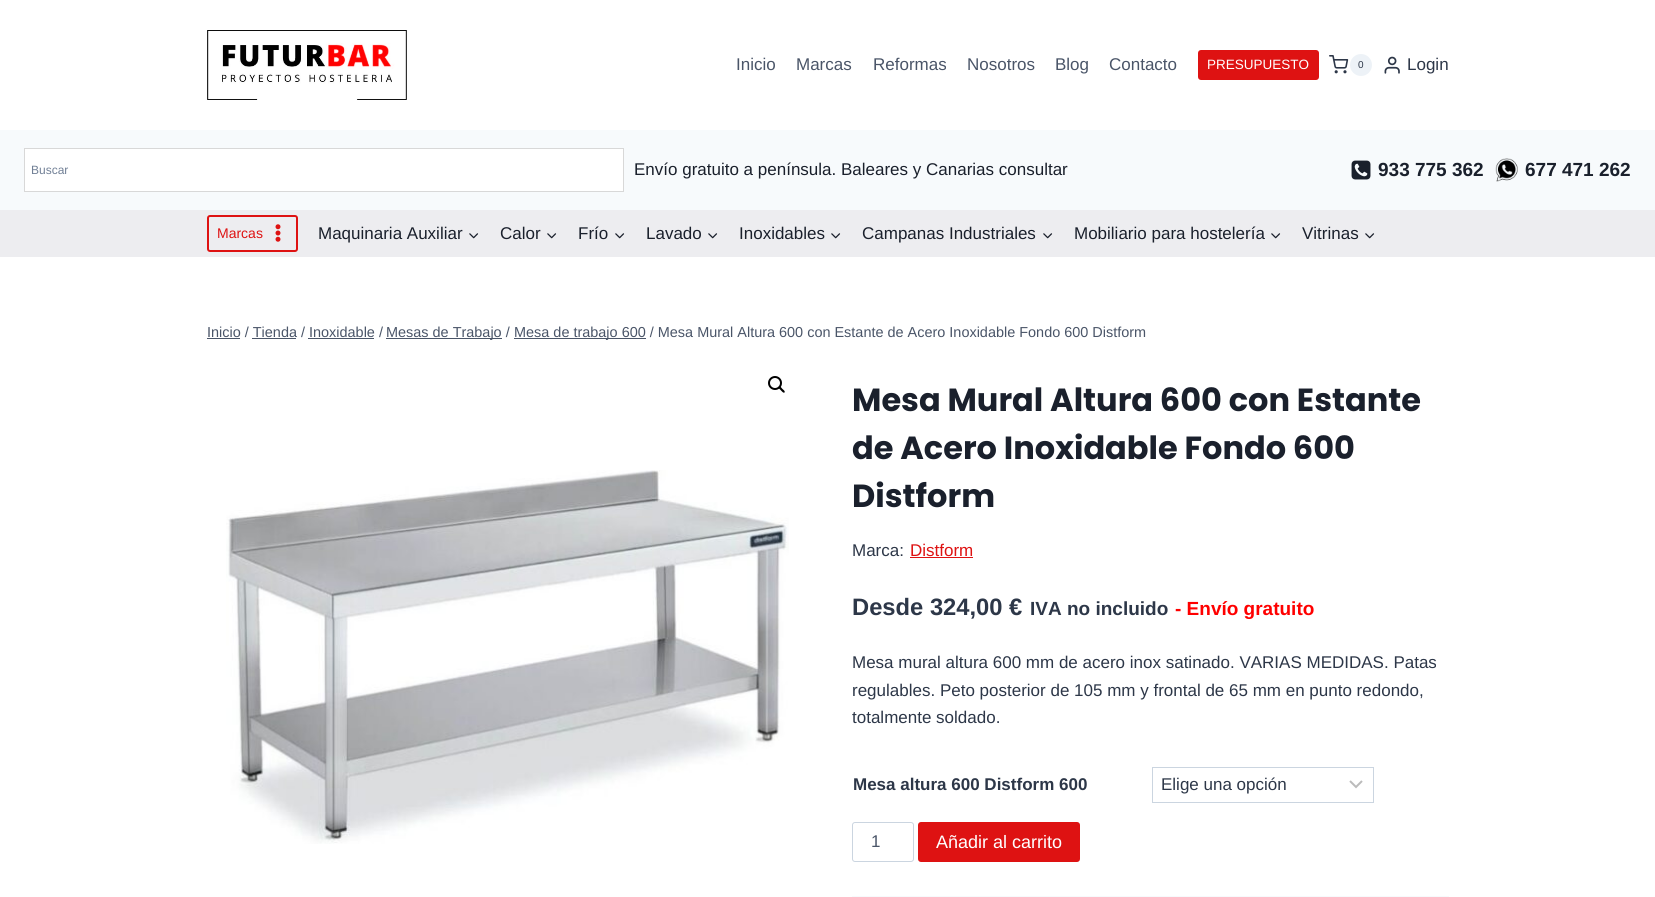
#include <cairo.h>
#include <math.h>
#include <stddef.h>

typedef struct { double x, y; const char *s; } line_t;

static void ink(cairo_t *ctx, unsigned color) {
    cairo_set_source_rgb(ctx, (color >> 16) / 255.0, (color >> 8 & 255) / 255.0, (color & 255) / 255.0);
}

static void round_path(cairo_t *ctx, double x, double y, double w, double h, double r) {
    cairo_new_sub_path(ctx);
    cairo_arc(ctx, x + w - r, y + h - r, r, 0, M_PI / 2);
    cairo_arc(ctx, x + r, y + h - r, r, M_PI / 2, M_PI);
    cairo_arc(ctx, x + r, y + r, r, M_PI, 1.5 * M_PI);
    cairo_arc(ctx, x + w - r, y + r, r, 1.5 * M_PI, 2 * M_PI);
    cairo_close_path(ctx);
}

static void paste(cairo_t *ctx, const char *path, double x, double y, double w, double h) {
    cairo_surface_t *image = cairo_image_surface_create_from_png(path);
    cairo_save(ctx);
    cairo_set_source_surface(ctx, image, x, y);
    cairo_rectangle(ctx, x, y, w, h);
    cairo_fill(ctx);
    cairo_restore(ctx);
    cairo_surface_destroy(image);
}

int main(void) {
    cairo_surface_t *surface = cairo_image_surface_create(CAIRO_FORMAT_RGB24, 1655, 897);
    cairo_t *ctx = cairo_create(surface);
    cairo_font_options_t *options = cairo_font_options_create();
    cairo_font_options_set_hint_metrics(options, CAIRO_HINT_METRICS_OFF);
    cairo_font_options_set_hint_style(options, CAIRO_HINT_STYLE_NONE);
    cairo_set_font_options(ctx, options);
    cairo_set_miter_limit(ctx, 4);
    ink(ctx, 0xFFFFFF);
    cairo_paint(ctx);
    paste(ctx, "media/1.png", 207, 30, 200, 70);
    cairo_select_font_face(ctx, "Liberation Sans", CAIRO_FONT_SLANT_NORMAL, CAIRO_FONT_WEIGHT_NORMAL);
    cairo_set_font_size(ctx, 17);
    ink(ctx, 0x4A5568);
    {
        static const line_t items[] = {
            {736, 70, "Inicio"},
            {796, 70, "Marcas"},
            {873, 70, "Reformas"},
            {967, 70, "Nosotros"},
            {1055, 70, "Blog"},
            {1109, 70, "Contacto"},
        };
        for (size_t i = 0; i < sizeof items / sizeof *items; i++) {
            cairo_move_to(ctx, items[i].x, items[i].y);
            cairo_show_text(ctx, items[i].s);
        }
    }
    ink(ctx, 0xDE1212);
    round_path(ctx, 1198, 50, 121, 30, 3);
    cairo_fill(ctx);
    cairo_set_font_size(ctx, 13.5);
    ink(ctx, 0xFFFFFF);
    cairo_move_to(ctx, 1207, 69);
    cairo_show_text(ctx, "PRESUPUESTO");
    paste(ctx, "media/2.png", 1329, 55, 20, 19);
    ink(ctx, 0xEDF2F7);
    cairo_arc(ctx, 1361, 65, 11, 0, 2 * M_PI);
    cairo_fill(ctx);
    cairo_set_font_size(ctx, 10);
    ink(ctx, 0x2D3748);
    cairo_move_to(ctx, 1358, 68);
    cairo_show_text(ctx, "0");
    paste(ctx, "media/3.png", 1384, 56, 16, 18);
    cairo_set_font_size(ctx, 17);
    cairo_move_to(ctx, 1407, 70);
    cairo_show_text(ctx, "Login");
    ink(ctx, 0xF7FAFC);
    cairo_rectangle(ctx, 0, 130, 1655, 80);
    cairo_fill(ctx);
    ink(ctx, 0xFFFFFF);
    cairo_rectangle(ctx, 24.5, 148.5, 599, 43);
    cairo_fill_preserve(ctx);
    ink(ctx, 0xD8D8D8);
    cairo_set_line_width(ctx, 1);
    cairo_stroke(ctx);
    cairo_set_font_size(ctx, 12);
    ink(ctx, 0x718096);
    cairo_move_to(ctx, 31, 174);
    cairo_show_text(ctx, "Buscar");
    cairo_set_font_size(ctx, 17);
    ink(ctx, 0x1A202C);
    cairo_move_to(ctx, 634, 175);
    cairo_show_text(ctx, "Envío gratuito a península. Baleares y Canarias consultar");
    paste(ctx, "media/4.png", 1351, 160, 20, 20);
    cairo_select_font_face(ctx, "Liberation Sans", CAIRO_FONT_SLANT_NORMAL, CAIRO_FONT_WEIGHT_BOLD);
    cairo_set_font_size(ctx, 19);
    cairo_move_to(ctx, 1378, 176);
    cairo_show_text(ctx, "933 775 362");
    paste(ctx, "media/5.png", 1495, 158, 23, 24);
    cairo_move_to(ctx, 1525, 176);
    cairo_show_text(ctx, "677 471 262");
    ink(ctx, 0xEDEDF0);
    cairo_rectangle(ctx, 0, 210, 1655, 47);
    cairo_fill(ctx);
    round_path(ctx, 208, 216, 89, 35, 2);
    ink(ctx, 0xDE1212);
    cairo_set_line_width(ctx, 2);
    cairo_stroke(ctx);
    cairo_select_font_face(ctx, "Liberation Sans", CAIRO_FONT_SLANT_NORMAL, CAIRO_FONT_WEIGHT_NORMAL);
    cairo_set_font_size(ctx, 14);
    cairo_move_to(ctx, 217, 238);
    cairo_show_text(ctx, "Marcas");
    paste(ctx, "media/6.png", 275, 224, 6, 18);
    cairo_set_font_size(ctx, 17);
    ink(ctx, 0x1A202C);
    cairo_move_to(ctx, 318, 239);
    cairo_show_text(ctx, "Maquinaria Auxiliar");
    paste(ctx, "media/7.png", 469, 233, 10, 6);
    cairo_move_to(ctx, 500, 239);
    cairo_show_text(ctx, "Calor");
    paste(ctx, "media/7.png", 547, 233, 10, 6);
    cairo_move_to(ctx, 578, 239);
    cairo_show_text(ctx, "Frío");
    paste(ctx, "media/7.png", 615, 233, 10, 6);
    cairo_move_to(ctx, 646, 239);
    cairo_show_text(ctx, "Lavado");
    paste(ctx, "media/7.png", 708, 233, 10, 6);
    cairo_move_to(ctx, 739, 239);
    cairo_show_text(ctx, "Inoxidables");
    paste(ctx, "media/7.png", 831, 233, 10, 6);
    cairo_move_to(ctx, 862, 239);
    cairo_show_text(ctx, "Campanas Industriales");
    paste(ctx, "media/7.png", 1043, 233, 10, 6);
    cairo_move_to(ctx, 1074, 239);
    cairo_show_text(ctx, "Mobiliario para hostelería");
    paste(ctx, "media/7.png", 1271, 233, 10, 6);
    cairo_move_to(ctx, 1302, 239);
    cairo_show_text(ctx, "Vitrinas");
    paste(ctx, "media/7.png", 1365, 233, 10, 6);
    cairo_set_font_size(ctx, 14.45);
    ink(ctx, 0x4A5568);
    cairo_move_to(ctx, 207, 337);
    cairo_show_text(ctx, "Inicio / Tienda / Inoxidable /");
    cairo_rectangle(ctx, 207, 338, 33, 1);
    cairo_fill(ctx);
    cairo_rectangle(ctx, 386, 338, 116, 1);
    cairo_fill(ctx);
    cairo_move_to(ctx, 386, 337);
    cairo_show_text(ctx, "Mesas de Trabajo /");
    cairo_rectangle(ctx, 514, 338, 132, 1);
    cairo_fill(ctx);
    cairo_move_to(ctx, 514, 337);
    cairo_show_text(ctx, "Mesa de trabajo 600 / Mesa Mural Altura 600 con Estante de Acero Inoxidable Fondo 600 Distform");
    cairo_rectangle(ctx, 252, 338, 44, 1);
    cairo_fill(ctx);
    cairo_rectangle(ctx, 308, 338, 66, 1);
    cairo_fill(ctx);
    cairo_arc(ctx, 775, 383, 6, 0, 2 * M_PI);
    ink(ctx, 0x000000);
    cairo_stroke(ctx);
    cairo_new_path(ctx);
    cairo_move_to(ctx, 779, 386.5);
    cairo_curve_to(ctx, 780, 385.5, 781.5, 388, 782.5, 389);
    cairo_curve_to(ctx, 783, 389.5, 785.5, 391, 784.5, 392.5);
    cairo_curve_to(ctx, 783.5, 393.5, 781.5, 391, 781, 390.5);
    cairo_curve_to(ctx, 780.5, 389.5, 777.5, 388, 779, 386.5);
    cairo_close_path(ctx);
    cairo_fill(ctx);
    paste(ctx, "media/8.png", 226, 470, 563, 374);
    cairo_select_font_face(ctx, "Poppins", CAIRO_FONT_SLANT_NORMAL, CAIRO_FONT_WEIGHT_BOLD);
    cairo_set_font_size(ctx, 32);
    ink(ctx, 0x1A202C);
    {
        static const line_t items[] = {
            {852, 411, "Mesa Mural Altura 600 con Estante"},
            {852, 459, "de Acero Inoxidable Fondo 600"},
            {852, 507, "Distform"},
        };
        for (size_t i = 0; i < sizeof items / sizeof *items; i++) {
            cairo_move_to(ctx, items[i].x, items[i].y);
            cairo_show_text(ctx, items[i].s);
        }
    }
    cairo_select_font_face(ctx, "Liberation Sans", CAIRO_FONT_SLANT_NORMAL, CAIRO_FONT_WEIGHT_NORMAL);
    cairo_set_font_size(ctx, 17);
    ink(ctx, 0x2D3748);
    cairo_move_to(ctx, 852, 556);
    cairo_show_text(ctx, "Marca:");
    ink(ctx, 0xDE1212);
    cairo_move_to(ctx, 910, 556);
    cairo_show_text(ctx, "Distform");
    cairo_rectangle(ctx, 910, 557, 63, 1);
    cairo_fill(ctx);
    cairo_select_font_face(ctx, "Liberation Sans", CAIRO_FONT_SLANT_NORMAL, CAIRO_FONT_WEIGHT_BOLD);
    cairo_set_font_size(ctx, 23.75);
    ink(ctx, 0x2D3748);
    cairo_move_to(ctx, 852, 615);
    cairo_show_text(ctx, "Desde 324,00 €");
    cairo_set_font_size(ctx, 19);
    cairo_move_to(ctx, 1030, 615);
    cairo_show_text(ctx, "IVA no incluido");
    ink(ctx, 0xFF0000);
    cairo_move_to(ctx, 1175, 615);
    cairo_show_text(ctx, "- Envío gratuito");
    cairo_select_font_face(ctx, "Liberation Sans", CAIRO_FONT_SLANT_NORMAL, CAIRO_FONT_WEIGHT_NORMAL);
    cairo_set_font_size(ctx, 17);
    ink(ctx, 0x2D3748);
    {
        static const line_t items[] = {
            {852, 668, "Mesa mural altura 600 mm de acero inox satinado. VARIAS MEDIDAS. Patas"},
            {852, 696, "regulables. Peto posterior de 105 mm y frontal de 65 mm en punto redondo,"},
            {852, 723, "totalmente soldado."},
        };
        for (size_t i = 0; i < sizeof items / sizeof *items; i++) {
            cairo_move_to(ctx, items[i].x, items[i].y);
            cairo_show_text(ctx, items[i].s);
        }
    }
    cairo_select_font_face(ctx, "Liberation Sans", CAIRO_FONT_SLANT_NORMAL, CAIRO_FONT_WEIGHT_BOLD);
    cairo_move_to(ctx, 853, 790);
    cairo_show_text(ctx, "Mesa altura 600 Distform 600");
    cairo_new_path(ctx);
    cairo_move_to(ctx, 1350, 781);
    cairo_line_to(ctx, 1356, 787);
    cairo_line_to(ctx, 1362, 781);
    ink(ctx, 0xBBBBBB);
    cairo_stroke(ctx);
    cairo_rectangle(ctx, 1152.5, 767.5, 221, 35);
    ink(ctx, 0xCBD5E0);
    cairo_set_line_width(ctx, 1);
    cairo_stroke(ctx);
    cairo_select_font_face(ctx, "Liberation Sans", CAIRO_FONT_SLANT_NORMAL, CAIRO_FONT_WEIGHT_NORMAL);
    ink(ctx, 0x2D3748);
    cairo_move_to(ctx, 1161, 790);
    cairo_show_text(ctx, "Elige una opción");
    round_path(ctx, 852.5, 822.5, 61, 39, 2.5);
    ink(ctx, 0xCBD5E0);
    cairo_stroke(ctx);
    ink(ctx, 0x4A5568);
    cairo_move_to(ctx, 871, 847);
    cairo_show_text(ctx, "1");
    ink(ctx, 0xDE1212);
    round_path(ctx, 918, 822, 162, 40, 3);
    cairo_fill(ctx);
    cairo_set_font_size(ctx, 18);
    ink(ctx, 0xFFFFFF);
    cairo_move_to(ctx, 936, 848);
    cairo_show_text(ctx, "Añadir al carrito");
    ink(ctx, 0xF7FAFC);
    cairo_rectangle(ctx, 852, 896, 597, 1);
    cairo_fill(ctx);
    cairo_surface_write_to_png(surface, "image.png");
    cairo_font_options_destroy(options);
    cairo_destroy(ctx);
    cairo_surface_destroy(surface);
    return 0;
}
